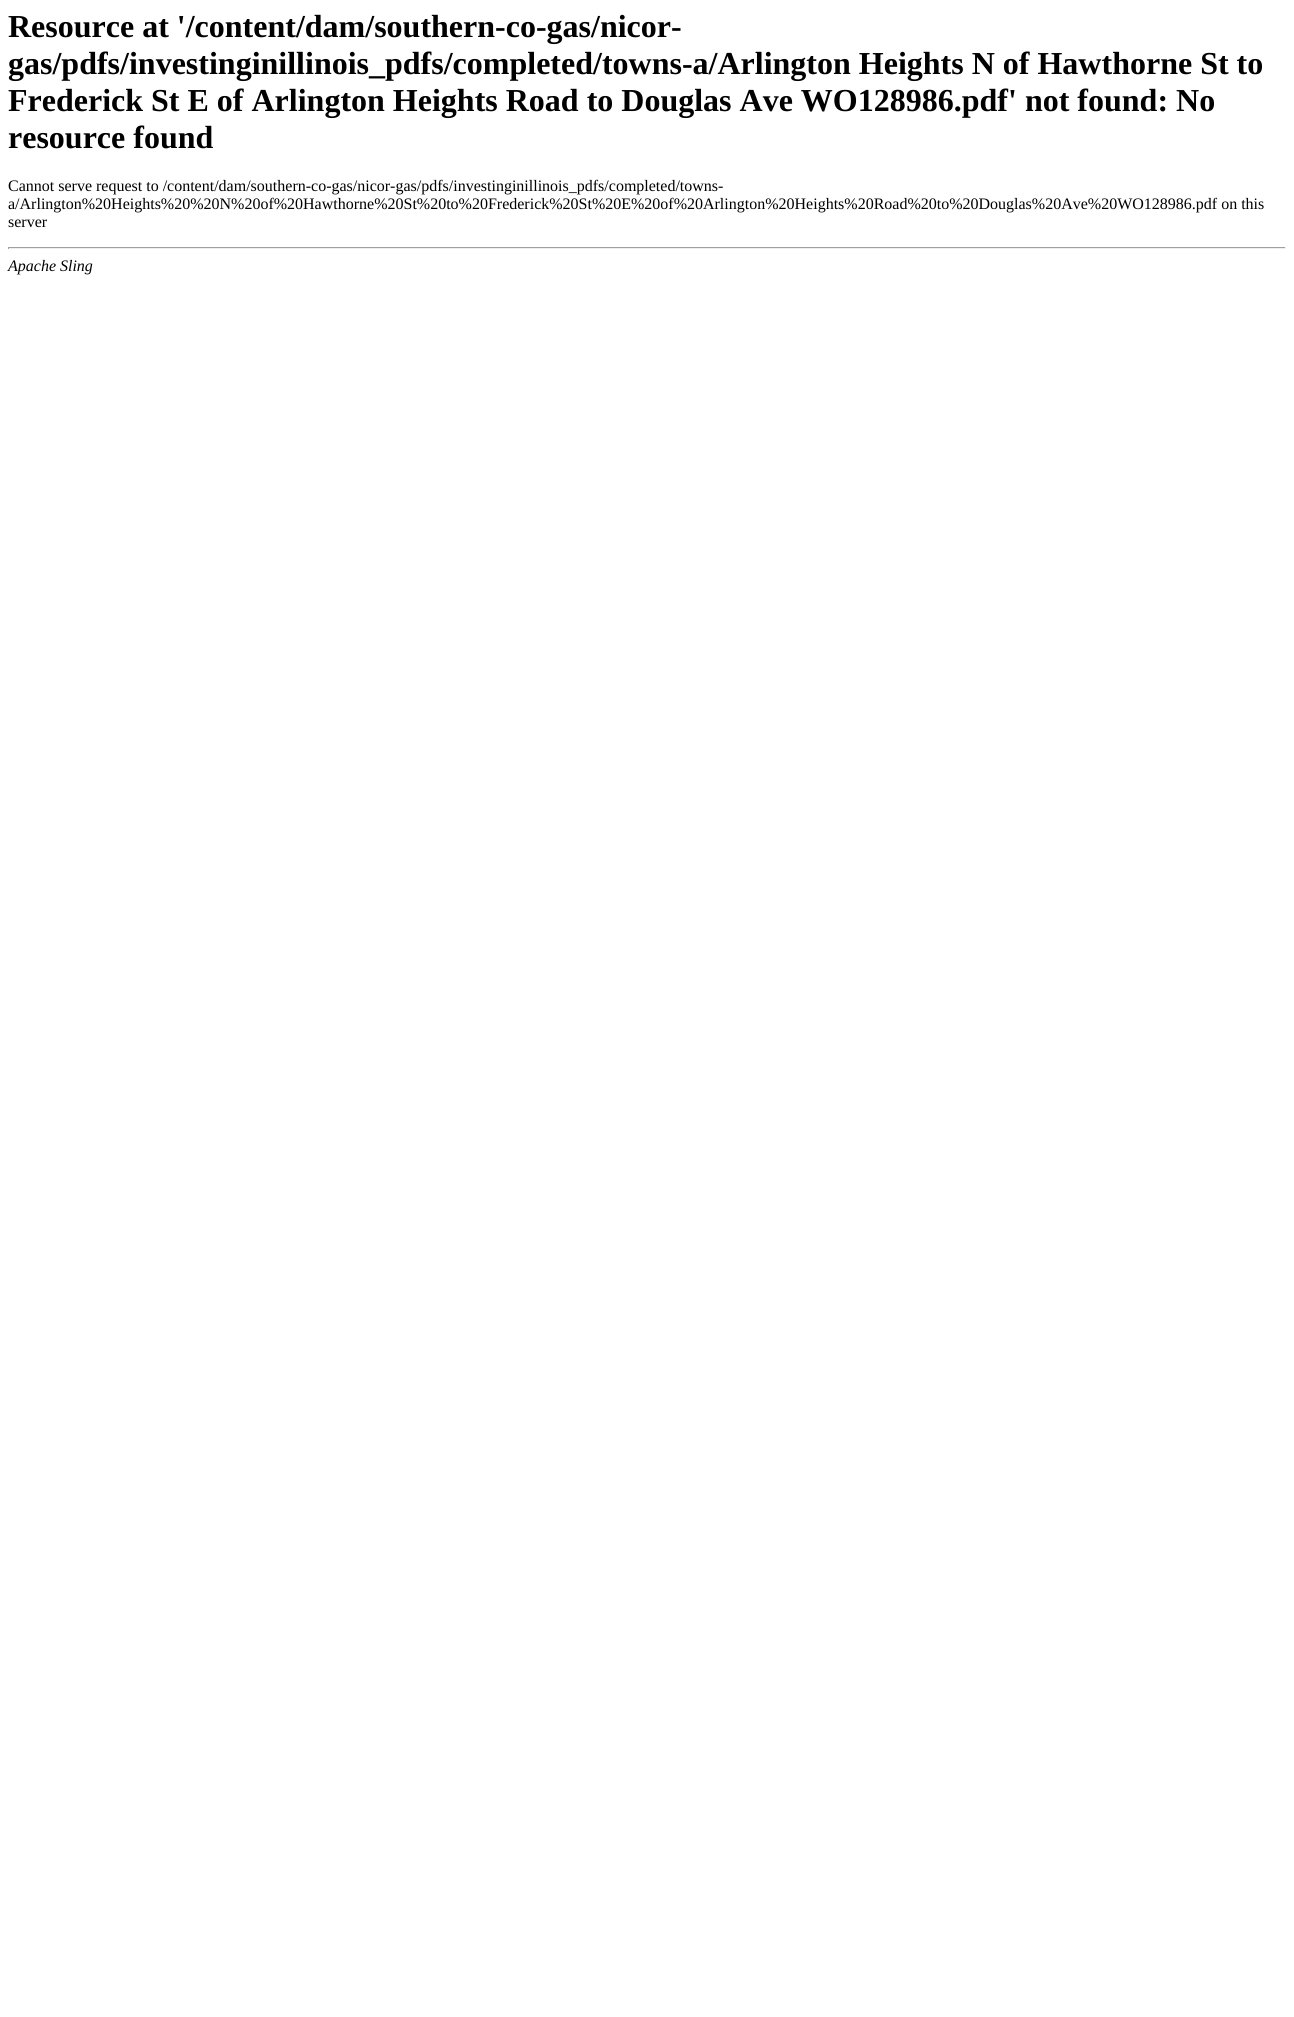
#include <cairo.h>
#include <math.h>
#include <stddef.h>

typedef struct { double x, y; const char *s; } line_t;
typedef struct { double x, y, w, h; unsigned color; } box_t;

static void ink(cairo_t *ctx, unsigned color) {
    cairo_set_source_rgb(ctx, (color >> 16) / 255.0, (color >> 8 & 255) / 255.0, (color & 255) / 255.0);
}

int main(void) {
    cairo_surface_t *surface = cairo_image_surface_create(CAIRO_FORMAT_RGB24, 1294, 2017);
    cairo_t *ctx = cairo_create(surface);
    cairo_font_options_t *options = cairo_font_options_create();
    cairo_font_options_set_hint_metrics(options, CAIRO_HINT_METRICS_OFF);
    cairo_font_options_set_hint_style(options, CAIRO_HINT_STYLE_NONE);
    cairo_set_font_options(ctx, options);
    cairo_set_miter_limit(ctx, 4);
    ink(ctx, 0xFFFFFF);
    cairo_paint(ctx);
    cairo_select_font_face(ctx, "Liberation Serif", CAIRO_FONT_SLANT_NORMAL, CAIRO_FONT_WEIGHT_BOLD);
    cairo_set_font_size(ctx, 32);
    ink(ctx, 0x000000);
    {
        static const line_t items[] = {
            {8, 37, "Resource at '/content/dam/southern-co-gas/nicor-"},
            {8, 74, "gas/pdfs/investinginillinois_pdfs/completed/towns-a/Arlington Heights N of Hawthorne St to"},
            {8, 111, "Frederick St E of Arlington Heights Road to Douglas Ave WO128986.pdf' not found: No"},
            {8, 148, "resource found"},
        };
        for (size_t i = 0; i < sizeof items / sizeof *items; i++) {
            cairo_move_to(ctx, items[i].x, items[i].y);
            cairo_show_text(ctx, items[i].s);
        }
    }
    cairo_select_font_face(ctx, "Liberation Serif", CAIRO_FONT_SLANT_NORMAL, CAIRO_FONT_WEIGHT_NORMAL);
    cairo_set_font_size(ctx, 16);
    {
        static const line_t items[] = {
            {8, 191, "Cannot serve request to /content/dam/southern-co-gas/nicor-gas/pdfs/investinginillinois_pdfs/completed/towns-"},
            {8, 209, "a/Arlington%20Heights%20%20N%20of%20Hawthorne%20St%20to%20Frederick%20St%20E%20of%20Arlington%20Heights%20Road%20to%20Douglas%20Ave%20WO128986.pdf on this"},
            {8, 227, "server"},
        };
        for (size_t i = 0; i < sizeof items / sizeof *items; i++) {
            cairo_move_to(ctx, items[i].x, items[i].y);
            cairo_show_text(ctx, items[i].s);
        }
    }
    {
        static const box_t items[] = {
            {8, 247, 1278, 1, 0x9F9F9F},
            {1285, 247, 1, 2, 0xEEEEEE},
            {8, 248, 1278, 1, 0xEEEEEE},
            {8, 247, 1, 2, 0x9F9F9F},
        };
        for (size_t i = 0; i < sizeof items / sizeof *items; i++) {
            ink(ctx, items[i].color);
            cairo_rectangle(ctx, items[i].x, items[i].y, items[i].w, items[i].h);
            cairo_fill(ctx);
        }
    }
    cairo_select_font_face(ctx, "Liberation Serif", CAIRO_FONT_SLANT_ITALIC, CAIRO_FONT_WEIGHT_NORMAL);
    ink(ctx, 0x000000);
    cairo_move_to(ctx, 8, 271);
    cairo_show_text(ctx, "Apache Sling");
    cairo_surface_write_to_png(surface, "image.png");
    cairo_font_options_destroy(options);
    cairo_destroy(ctx);
    cairo_surface_destroy(surface);
    return 0;
}
